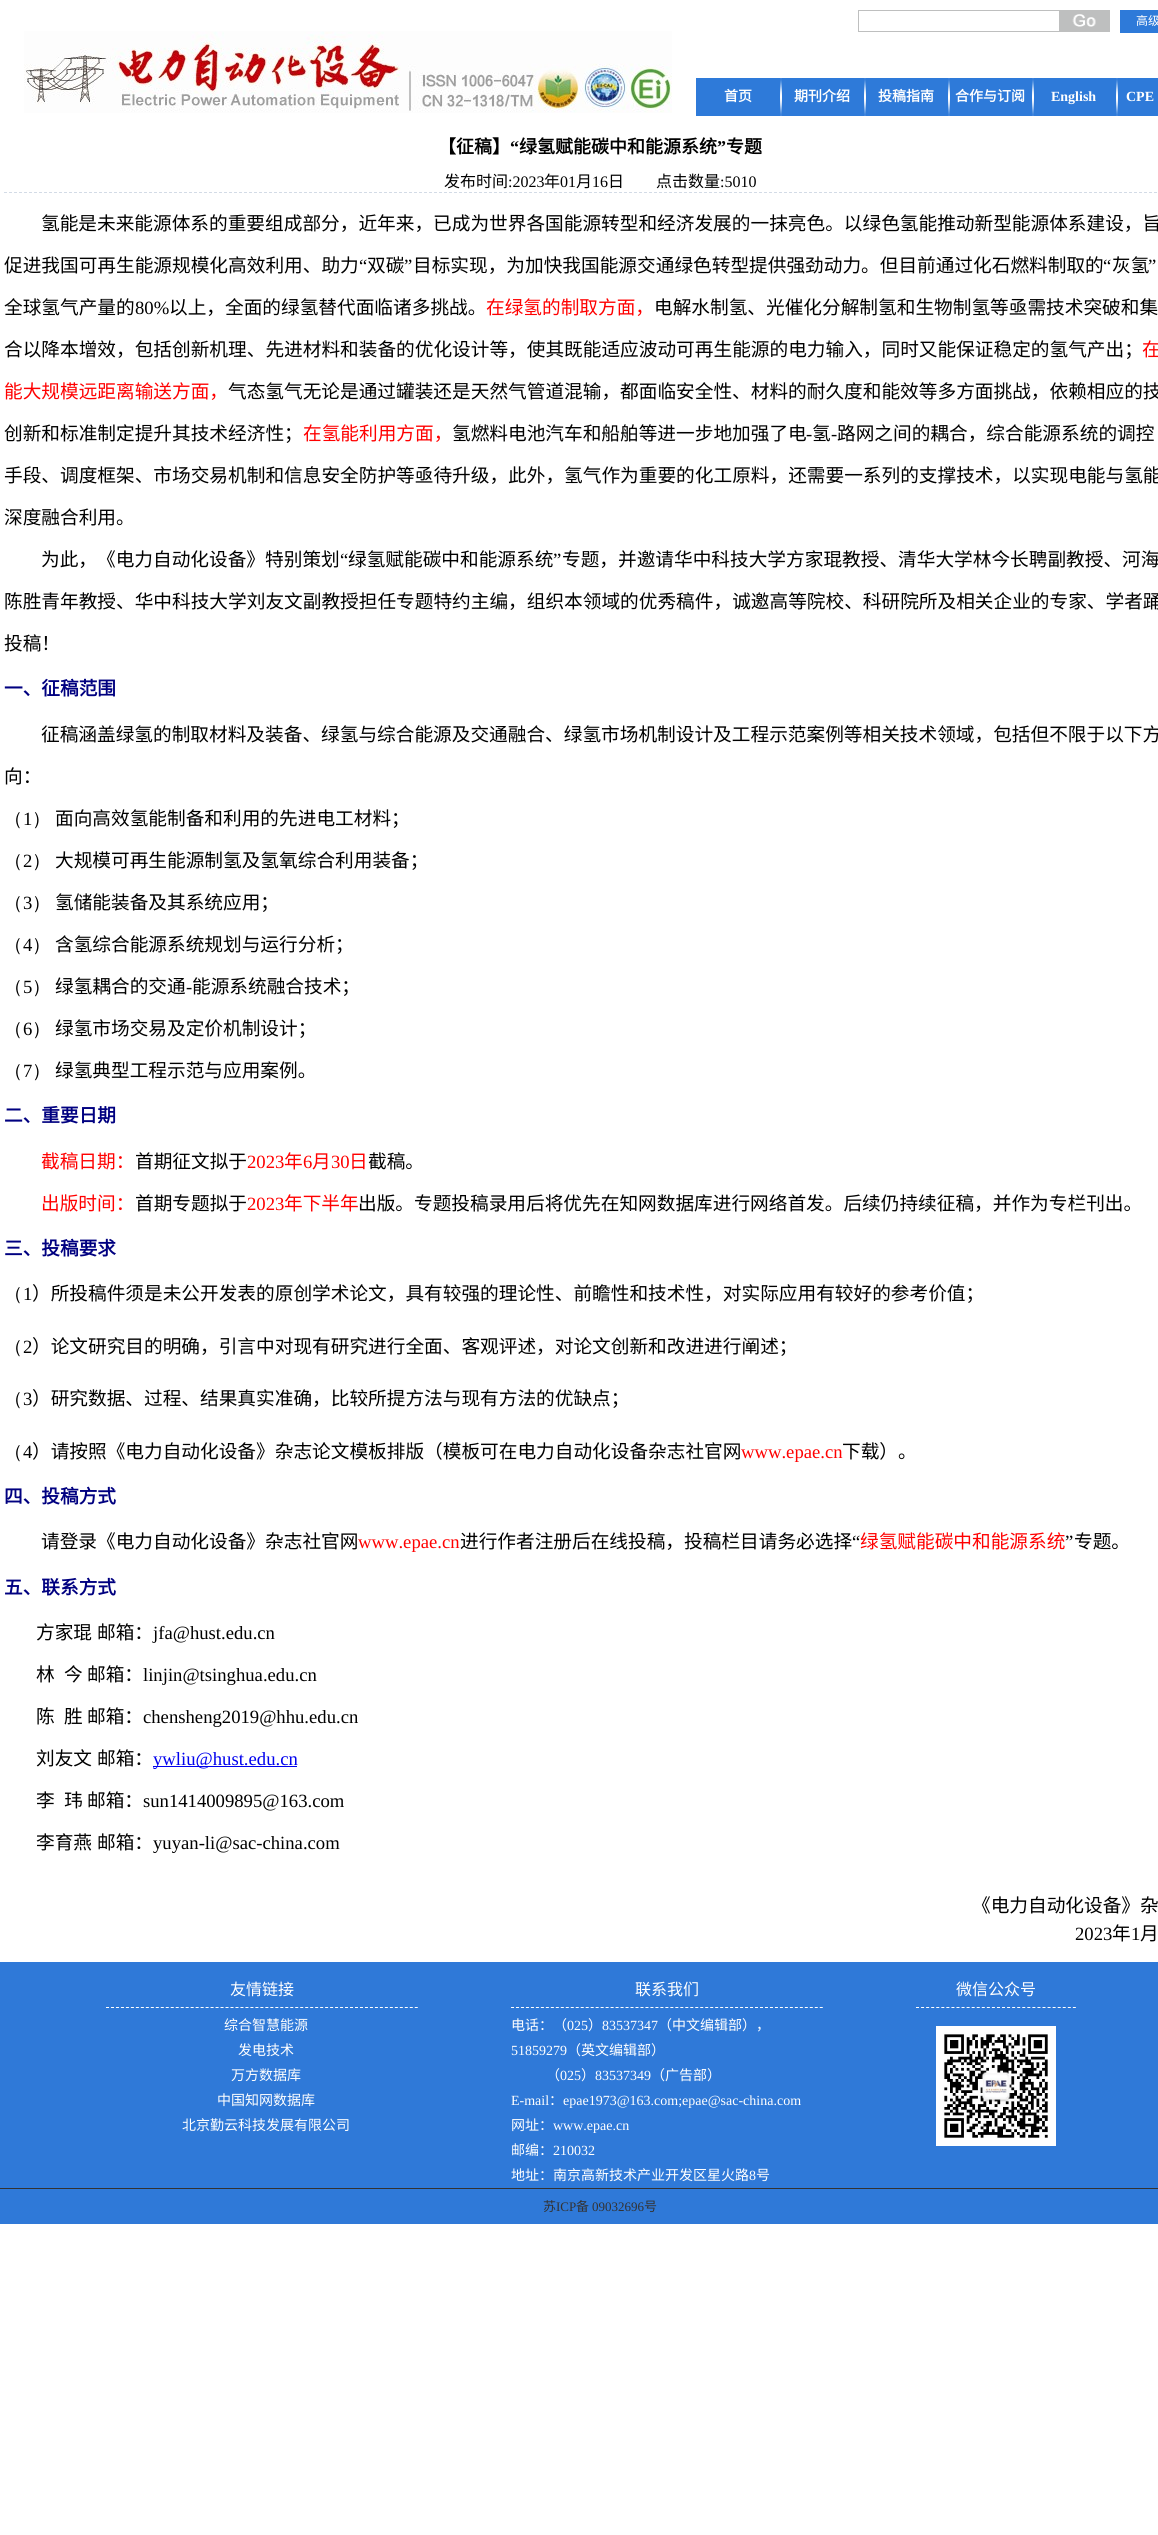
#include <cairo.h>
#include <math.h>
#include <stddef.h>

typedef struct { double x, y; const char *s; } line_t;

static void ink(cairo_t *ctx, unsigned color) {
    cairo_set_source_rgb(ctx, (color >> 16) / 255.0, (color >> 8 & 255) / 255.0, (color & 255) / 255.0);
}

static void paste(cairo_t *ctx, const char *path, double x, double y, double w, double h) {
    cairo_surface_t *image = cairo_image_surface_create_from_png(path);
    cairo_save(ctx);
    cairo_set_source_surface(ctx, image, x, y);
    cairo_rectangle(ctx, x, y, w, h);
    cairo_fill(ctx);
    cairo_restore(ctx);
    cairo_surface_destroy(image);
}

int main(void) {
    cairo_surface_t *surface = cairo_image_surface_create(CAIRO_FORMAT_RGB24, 1158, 2535);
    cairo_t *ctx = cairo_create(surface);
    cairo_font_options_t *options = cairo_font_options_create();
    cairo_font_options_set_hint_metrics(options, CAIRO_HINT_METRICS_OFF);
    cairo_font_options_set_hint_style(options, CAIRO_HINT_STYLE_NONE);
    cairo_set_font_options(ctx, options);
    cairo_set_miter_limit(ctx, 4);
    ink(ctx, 0xFFFFFF);
    cairo_paint(ctx);
    cairo_rectangle(ctx, 858.5, 10.5, 251, 21);
    ink(ctx, 0xBEBFBF);
    cairo_set_line_width(ctx, 1);
    cairo_stroke(ctx);
    cairo_rectangle(ctx, 1059, 11, 50, 20);
    cairo_fill(ctx);
    paste(ctx, "media/1.png", 1072, 14, 24, 13);
    ink(ctx, 0x2E7AD9);
    cairo_rectangle(ctx, 1120, 10, 38, 23);
    cairo_fill(ctx);
    cairo_select_font_face(ctx, "Noto Sans CJK SC", CAIRO_FONT_SLANT_NORMAL, CAIRO_FONT_WEIGHT_NORMAL);
    cairo_set_font_size(ctx, 12);
    ink(ctx, 0xFFFFFF);
    cairo_move_to(ctx, 1136, 25);
    cairo_show_text(ctx, "高级");
    paste(ctx, "media/2.png", 24, 31, 648, 82);
    ink(ctx, 0x2E7AD9);
    cairo_rectangle(ctx, 696, 78, 462, 38);
    cairo_fill(ctx);
    cairo_select_font_face(ctx, "Noto Sans CJK SC", CAIRO_FONT_SLANT_NORMAL, CAIRO_FONT_WEIGHT_BOLD);
    cairo_set_font_size(ctx, 14);
    ink(ctx, 0xFFFFFF);
    cairo_move_to(ctx, 724, 101);
    cairo_show_text(ctx, "首页");
    paste(ctx, "media/3.png", 780, 78, 2, 38);
    cairo_move_to(ctx, 794, 101);
    cairo_show_text(ctx, "期刊介绍");
    paste(ctx, "media/3.png", 864, 78, 2, 38);
    cairo_move_to(ctx, 878, 101);
    cairo_show_text(ctx, "投稿指南");
    paste(ctx, "media/3.png", 948, 78, 2, 38);
    cairo_move_to(ctx, 955, 101);
    cairo_show_text(ctx, "合作与订阅");
    paste(ctx, "media/3.png", 1032, 78, 2, 38);
    cairo_select_font_face(ctx, "Liberation Serif", CAIRO_FONT_SLANT_NORMAL, CAIRO_FONT_WEIGHT_BOLD);
    cairo_move_to(ctx, 1051, 101);
    cairo_show_text(ctx, "English");
    paste(ctx, "media/3.png", 1116, 78, 2, 38);
    cairo_move_to(ctx, 1126, 101);
    cairo_show_text(ctx, "CPE");
    cairo_select_font_face(ctx, "Noto Sans CJK SC", CAIRO_FONT_SLANT_NORMAL, CAIRO_FONT_WEIGHT_BOLD);
    cairo_set_font_size(ctx, 18);
    ink(ctx, 0x000000);
    cairo_move_to(ctx, 438, 153);
    cairo_show_text(ctx, "【征稿】");
    cairo_select_font_face(ctx, "Liberation Serif", CAIRO_FONT_SLANT_NORMAL, CAIRO_FONT_WEIGHT_BOLD);
    cairo_move_to(ctx, 510, 153);
    cairo_show_text(ctx, "“");
    cairo_select_font_face(ctx, "Noto Sans CJK SC", CAIRO_FONT_SLANT_NORMAL, CAIRO_FONT_WEIGHT_BOLD);
    cairo_move_to(ctx, 519, 153);
    cairo_show_text(ctx, "绿氢赋能碳中和能源系统");
    cairo_select_font_face(ctx, "Liberation Serif", CAIRO_FONT_SLANT_NORMAL, CAIRO_FONT_WEIGHT_BOLD);
    cairo_move_to(ctx, 717, 153);
    cairo_show_text(ctx, "”");
    cairo_select_font_face(ctx, "Noto Sans CJK SC", CAIRO_FONT_SLANT_NORMAL, CAIRO_FONT_WEIGHT_BOLD);
    cairo_move_to(ctx, 726, 153);
    cairo_show_text(ctx, "专题");
    cairo_new_path(ctx);
    cairo_move_to(ctx, 4, 192.5);
    cairo_line_to(ctx, 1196, 192.5);
    ink(ctx, 0xD3DBE6);
    cairo_set_dash(ctx, (double[]){3, 2}, 2, 0);
    cairo_stroke(ctx);
    cairo_select_font_face(ctx, "Noto Sans CJK SC", CAIRO_FONT_SLANT_NORMAL, CAIRO_FONT_WEIGHT_NORMAL);
    cairo_set_font_size(ctx, 16);
    ink(ctx, 0x000000);
    cairo_move_to(ctx, 444, 187);
    cairo_show_text(ctx, "发布时间");
    cairo_select_font_face(ctx, "Liberation Serif", CAIRO_FONT_SLANT_NORMAL, CAIRO_FONT_WEIGHT_NORMAL);
    cairo_move_to(ctx, 508, 187);
    cairo_show_text(ctx, ":2023");
    cairo_select_font_face(ctx, "Noto Sans CJK SC", CAIRO_FONT_SLANT_NORMAL, CAIRO_FONT_WEIGHT_NORMAL);
    cairo_move_to(ctx, 544, 187);
    cairo_show_text(ctx, "年");
    cairo_select_font_face(ctx, "Liberation Serif", CAIRO_FONT_SLANT_NORMAL, CAIRO_FONT_WEIGHT_NORMAL);
    cairo_move_to(ctx, 560, 187);
    cairo_show_text(ctx, "01");
    cairo_select_font_face(ctx, "Noto Sans CJK SC", CAIRO_FONT_SLANT_NORMAL, CAIRO_FONT_WEIGHT_NORMAL);
    cairo_move_to(ctx, 576, 187);
    cairo_show_text(ctx, "月");
    cairo_select_font_face(ctx, "Liberation Serif", CAIRO_FONT_SLANT_NORMAL, CAIRO_FONT_WEIGHT_NORMAL);
    cairo_move_to(ctx, 592, 187);
    cairo_show_text(ctx, "16");
    cairo_select_font_face(ctx, "Noto Sans CJK SC", CAIRO_FONT_SLANT_NORMAL, CAIRO_FONT_WEIGHT_NORMAL);
    cairo_move_to(ctx, 608, 187);
    cairo_show_text(ctx, "日");
    cairo_move_to(ctx, 656, 187);
    cairo_show_text(ctx, "点击数量");
    cairo_select_font_face(ctx, "Liberation Serif", CAIRO_FONT_SLANT_NORMAL, CAIRO_FONT_WEIGHT_NORMAL);
    cairo_move_to(ctx, 720, 187);
    cairo_show_text(ctx, ":5010");
    cairo_select_font_face(ctx, "Noto Sans CJK SC", CAIRO_FONT_SLANT_NORMAL, CAIRO_FONT_WEIGHT_NORMAL);
    cairo_set_font_size(ctx, 18.67);
    cairo_move_to(ctx, 41, 230);
    cairo_show_text(ctx, "氢能是未来能源体系的重要组成部分，近年来，已成为世界各国能源转型和经济发展的一抹亮色。以绿色氢能推动新型能源体系建设，旨");
    cairo_move_to(ctx, 4, 272);
    cairo_show_text(ctx, "促进我国可再生能源规模化高效利用、助力");
    cairo_select_font_face(ctx, "Liberation Serif", CAIRO_FONT_SLANT_NORMAL, CAIRO_FONT_WEIGHT_NORMAL);
    cairo_move_to(ctx, 359, 272);
    cairo_show_text(ctx, "“");
    cairo_select_font_face(ctx, "Noto Sans CJK SC", CAIRO_FONT_SLANT_NORMAL, CAIRO_FONT_WEIGHT_NORMAL);
    cairo_move_to(ctx, 367, 272);
    cairo_show_text(ctx, "双碳");
    cairo_select_font_face(ctx, "Liberation Serif", CAIRO_FONT_SLANT_NORMAL, CAIRO_FONT_WEIGHT_NORMAL);
    cairo_move_to(ctx, 404, 272);
    cairo_show_text(ctx, "”");
    cairo_select_font_face(ctx, "Noto Sans CJK SC", CAIRO_FONT_SLANT_NORMAL, CAIRO_FONT_WEIGHT_NORMAL);
    cairo_move_to(ctx, 413, 272);
    cairo_show_text(ctx, "目标实现，为加快我国能源交通绿色转型提供强劲动力。但目前通过化石燃料制取的");
    cairo_select_font_face(ctx, "Liberation Serif", CAIRO_FONT_SLANT_NORMAL, CAIRO_FONT_WEIGHT_NORMAL);
    cairo_move_to(ctx, 1103, 272);
    cairo_show_text(ctx, "“");
    cairo_select_font_face(ctx, "Noto Sans CJK SC", CAIRO_FONT_SLANT_NORMAL, CAIRO_FONT_WEIGHT_NORMAL);
    cairo_move_to(ctx, 1112, 272);
    cairo_show_text(ctx, "灰氢");
    cairo_select_font_face(ctx, "Liberation Serif", CAIRO_FONT_SLANT_NORMAL, CAIRO_FONT_WEIGHT_NORMAL);
    cairo_move_to(ctx, 1148, 272);
    cairo_show_text(ctx, "”");
    cairo_select_font_face(ctx, "Noto Sans CJK SC", CAIRO_FONT_SLANT_NORMAL, CAIRO_FONT_WEIGHT_NORMAL);
    cairo_move_to(ctx, 4, 314);
    cairo_show_text(ctx, "全球氢气产量的");
    cairo_select_font_face(ctx, "Liberation Serif", CAIRO_FONT_SLANT_NORMAL, CAIRO_FONT_WEIGHT_NORMAL);
    cairo_move_to(ctx, 135, 314);
    cairo_show_text(ctx, "80%");
    cairo_select_font_face(ctx, "Noto Sans CJK SC", CAIRO_FONT_SLANT_NORMAL, CAIRO_FONT_WEIGHT_NORMAL);
    cairo_move_to(ctx, 169, 314);
    cairo_show_text(ctx, "以上，全面的绿氢替代面临诸多挑战。");
    ink(ctx, 0xFF0000);
    cairo_move_to(ctx, 486, 314);
    cairo_show_text(ctx, "在绿氢的制取方面，");
    ink(ctx, 0x000000);
    cairo_move_to(ctx, 654, 314);
    cairo_show_text(ctx, "电解水制氢、光催化分解制氢和生物制氢等亟需技术突破和集");
    cairo_move_to(ctx, 4, 356);
    cairo_show_text(ctx, "合以降本增效，包括创新机理、先进材料和装备的优化设计等，使其既能适应波动可再生能源的电力输入，同时又能保证稳定的氢气产出；");
    ink(ctx, 0xFF0000);
    cairo_move_to(ctx, 1142, 356);
    cairo_show_text(ctx, "在");
    cairo_move_to(ctx, 4, 398);
    cairo_show_text(ctx, "能大规模远距离输送方面，");
    ink(ctx, 0x000000);
    cairo_move_to(ctx, 228, 398);
    cairo_show_text(ctx, "气态氢气无论是通过罐装还是天然气管道混输，都面临安全性、材料的耐久度和能效等多方面挑战，依赖相应的技");
    cairo_move_to(ctx, 4, 440);
    cairo_show_text(ctx, "创新和标准制定提升其技术经济性；");
    ink(ctx, 0xFF0000);
    cairo_move_to(ctx, 303, 440);
    cairo_show_text(ctx, "在氢能利用方面，");
    ink(ctx, 0x000000);
    cairo_move_to(ctx, 452, 440);
    cairo_show_text(ctx, "氢燃料电池汽车和船舶等进一步地加强了电");
    cairo_select_font_face(ctx, "Liberation Serif", CAIRO_FONT_SLANT_NORMAL, CAIRO_FONT_WEIGHT_NORMAL);
    cairo_move_to(ctx, 806, 440);
    cairo_show_text(ctx, "-");
    cairo_select_font_face(ctx, "Noto Sans CJK SC", CAIRO_FONT_SLANT_NORMAL, CAIRO_FONT_WEIGHT_NORMAL);
    cairo_move_to(ctx, 812, 440);
    cairo_show_text(ctx, "氢");
    cairo_select_font_face(ctx, "Liberation Serif", CAIRO_FONT_SLANT_NORMAL, CAIRO_FONT_WEIGHT_NORMAL);
    cairo_move_to(ctx, 831, 440);
    cairo_show_text(ctx, "-");
    cairo_select_font_face(ctx, "Noto Sans CJK SC", CAIRO_FONT_SLANT_NORMAL, CAIRO_FONT_WEIGHT_NORMAL);
    {
        static const line_t items[] = {
            {837, 440, "路网之间的耦合，综合能源系统的调控"},
            {4, 482, "手段、调度框架、市场交易机制和信息安全防护等亟待升级，此外，氢气作为重要的化工原料，还需要一系列的支撑技术，以实现电能与氢能"},
            {4, 524, "深度融合利用。"},
            {41, 566, "为此，《电力自动化设备》特别策划"},
        };
        for (size_t i = 0; i < sizeof items / sizeof *items; i++) {
            cairo_move_to(ctx, items[i].x, items[i].y);
            cairo_show_text(ctx, items[i].s);
        }
    }
    cairo_select_font_face(ctx, "Liberation Serif", CAIRO_FONT_SLANT_NORMAL, CAIRO_FONT_WEIGHT_NORMAL);
    cairo_move_to(ctx, 340, 566);
    cairo_show_text(ctx, "“");
    cairo_select_font_face(ctx, "Noto Sans CJK SC", CAIRO_FONT_SLANT_NORMAL, CAIRO_FONT_WEIGHT_NORMAL);
    cairo_move_to(ctx, 348, 566);
    cairo_show_text(ctx, "绿氢赋能碳中和能源系统");
    cairo_select_font_face(ctx, "Liberation Serif", CAIRO_FONT_SLANT_NORMAL, CAIRO_FONT_WEIGHT_NORMAL);
    cairo_move_to(ctx, 553, 566);
    cairo_show_text(ctx, "”");
    cairo_select_font_face(ctx, "Noto Sans CJK SC", CAIRO_FONT_SLANT_NORMAL, CAIRO_FONT_WEIGHT_NORMAL);
    {
        static const line_t items[] = {
            {562, 566, "专题，并邀请华中科技大学方家琨教授、清华大学林今长聘副教授、河海"},
            {4, 608, "陈胜青年教授、华中科技大学刘友文副教授担任专题特约主编，组织本领域的优秀稿件，诚邀高等院校、科研院所及相关企业的专家、学者踊"},
            {4, 650, "投稿！"},
        };
        for (size_t i = 0; i < sizeof items / sizeof *items; i++) {
            cairo_move_to(ctx, items[i].x, items[i].y);
            cairo_show_text(ctx, items[i].s);
        }
    }
    cairo_select_font_face(ctx, "Noto Sans CJK SC", CAIRO_FONT_SLANT_NORMAL, CAIRO_FONT_WEIGHT_BOLD);
    ink(ctx, 0x000080);
    cairo_move_to(ctx, 4, 695);
    cairo_show_text(ctx, "一、征稿范围");
    cairo_select_font_face(ctx, "Noto Sans CJK SC", CAIRO_FONT_SLANT_NORMAL, CAIRO_FONT_WEIGHT_NORMAL);
    ink(ctx, 0x000000);
    cairo_move_to(ctx, 41, 741);
    cairo_show_text(ctx, "征稿涵盖绿氢的制取材料及装备、绿氢与综合能源及交通融合、绿氢市场机制设计及工程示范案例等相关技术领域，包括但不限于以下方");
    cairo_move_to(ctx, 4, 783);
    cairo_show_text(ctx, "向：");
    cairo_select_font_face(ctx, "WenQuanYi Zen Hei Medium", CAIRO_FONT_SLANT_NORMAL, CAIRO_FONT_WEIGHT_NORMAL);
    cairo_move_to(ctx, 4, 825);
    cairo_show_text(ctx, "（");
    cairo_select_font_face(ctx, "Liberation Serif", CAIRO_FONT_SLANT_NORMAL, CAIRO_FONT_WEIGHT_NORMAL);
    cairo_move_to(ctx, 23, 825);
    cairo_show_text(ctx, "1");
    cairo_select_font_face(ctx, "WenQuanYi Zen Hei Medium", CAIRO_FONT_SLANT_NORMAL, CAIRO_FONT_WEIGHT_NORMAL);
    cairo_move_to(ctx, 32, 825);
    cairo_show_text(ctx, "）");
    cairo_select_font_face(ctx, "Noto Sans CJK SC", CAIRO_FONT_SLANT_NORMAL, CAIRO_FONT_WEIGHT_NORMAL);
    cairo_move_to(ctx, 55, 825);
    cairo_show_text(ctx, "面向高效氢能制备和利用的先进电工材料；");
    cairo_select_font_face(ctx, "WenQuanYi Zen Hei Medium", CAIRO_FONT_SLANT_NORMAL, CAIRO_FONT_WEIGHT_NORMAL);
    cairo_move_to(ctx, 4, 867);
    cairo_show_text(ctx, "（");
    cairo_select_font_face(ctx, "Liberation Serif", CAIRO_FONT_SLANT_NORMAL, CAIRO_FONT_WEIGHT_NORMAL);
    cairo_move_to(ctx, 23, 867);
    cairo_show_text(ctx, "2");
    cairo_select_font_face(ctx, "WenQuanYi Zen Hei Medium", CAIRO_FONT_SLANT_NORMAL, CAIRO_FONT_WEIGHT_NORMAL);
    cairo_move_to(ctx, 32, 867);
    cairo_show_text(ctx, "）");
    cairo_select_font_face(ctx, "Noto Sans CJK SC", CAIRO_FONT_SLANT_NORMAL, CAIRO_FONT_WEIGHT_NORMAL);
    cairo_move_to(ctx, 55, 867);
    cairo_show_text(ctx, "大规模可再生能源制氢及氢氧综合利用装备；");
    cairo_select_font_face(ctx, "WenQuanYi Zen Hei Medium", CAIRO_FONT_SLANT_NORMAL, CAIRO_FONT_WEIGHT_NORMAL);
    cairo_move_to(ctx, 4, 909);
    cairo_show_text(ctx, "（");
    cairo_select_font_face(ctx, "Liberation Serif", CAIRO_FONT_SLANT_NORMAL, CAIRO_FONT_WEIGHT_NORMAL);
    cairo_move_to(ctx, 23, 909);
    cairo_show_text(ctx, "3");
    cairo_select_font_face(ctx, "WenQuanYi Zen Hei Medium", CAIRO_FONT_SLANT_NORMAL, CAIRO_FONT_WEIGHT_NORMAL);
    cairo_move_to(ctx, 32, 909);
    cairo_show_text(ctx, "）");
    cairo_select_font_face(ctx, "Noto Sans CJK SC", CAIRO_FONT_SLANT_NORMAL, CAIRO_FONT_WEIGHT_NORMAL);
    cairo_move_to(ctx, 55, 909);
    cairo_show_text(ctx, "氢储能装备及其系统应用；");
    cairo_select_font_face(ctx, "WenQuanYi Zen Hei Medium", CAIRO_FONT_SLANT_NORMAL, CAIRO_FONT_WEIGHT_NORMAL);
    cairo_move_to(ctx, 4, 951);
    cairo_show_text(ctx, "（");
    cairo_select_font_face(ctx, "Liberation Serif", CAIRO_FONT_SLANT_NORMAL, CAIRO_FONT_WEIGHT_NORMAL);
    cairo_move_to(ctx, 23, 951);
    cairo_show_text(ctx, "4");
    cairo_select_font_face(ctx, "WenQuanYi Zen Hei Medium", CAIRO_FONT_SLANT_NORMAL, CAIRO_FONT_WEIGHT_NORMAL);
    cairo_move_to(ctx, 32, 951);
    cairo_show_text(ctx, "）");
    cairo_select_font_face(ctx, "Noto Sans CJK SC", CAIRO_FONT_SLANT_NORMAL, CAIRO_FONT_WEIGHT_NORMAL);
    cairo_move_to(ctx, 55, 951);
    cairo_show_text(ctx, "含氢综合能源系统规划与运行分析；");
    cairo_select_font_face(ctx, "WenQuanYi Zen Hei Medium", CAIRO_FONT_SLANT_NORMAL, CAIRO_FONT_WEIGHT_NORMAL);
    cairo_move_to(ctx, 4, 993);
    cairo_show_text(ctx, "（");
    cairo_select_font_face(ctx, "Liberation Serif", CAIRO_FONT_SLANT_NORMAL, CAIRO_FONT_WEIGHT_NORMAL);
    cairo_move_to(ctx, 23, 993);
    cairo_show_text(ctx, "5");
    cairo_select_font_face(ctx, "WenQuanYi Zen Hei Medium", CAIRO_FONT_SLANT_NORMAL, CAIRO_FONT_WEIGHT_NORMAL);
    cairo_move_to(ctx, 32, 993);
    cairo_show_text(ctx, "）");
    cairo_select_font_face(ctx, "Noto Sans CJK SC", CAIRO_FONT_SLANT_NORMAL, CAIRO_FONT_WEIGHT_NORMAL);
    cairo_move_to(ctx, 55, 993);
    cairo_show_text(ctx, "绿氢耦合的交通");
    cairo_select_font_face(ctx, "Liberation Serif", CAIRO_FONT_SLANT_NORMAL, CAIRO_FONT_WEIGHT_NORMAL);
    cairo_move_to(ctx, 186, 993);
    cairo_show_text(ctx, "-");
    cairo_select_font_face(ctx, "Noto Sans CJK SC", CAIRO_FONT_SLANT_NORMAL, CAIRO_FONT_WEIGHT_NORMAL);
    cairo_move_to(ctx, 192, 993);
    cairo_show_text(ctx, "能源系统融合技术；");
    cairo_select_font_face(ctx, "WenQuanYi Zen Hei Medium", CAIRO_FONT_SLANT_NORMAL, CAIRO_FONT_WEIGHT_NORMAL);
    cairo_move_to(ctx, 4, 1035);
    cairo_show_text(ctx, "（");
    cairo_select_font_face(ctx, "Liberation Serif", CAIRO_FONT_SLANT_NORMAL, CAIRO_FONT_WEIGHT_NORMAL);
    cairo_move_to(ctx, 23, 1035);
    cairo_show_text(ctx, "6");
    cairo_select_font_face(ctx, "WenQuanYi Zen Hei Medium", CAIRO_FONT_SLANT_NORMAL, CAIRO_FONT_WEIGHT_NORMAL);
    cairo_move_to(ctx, 32, 1035);
    cairo_show_text(ctx, "）");
    cairo_select_font_face(ctx, "Noto Sans CJK SC", CAIRO_FONT_SLANT_NORMAL, CAIRO_FONT_WEIGHT_NORMAL);
    cairo_move_to(ctx, 55, 1035);
    cairo_show_text(ctx, "绿氢市场交易及定价机制设计；");
    cairo_select_font_face(ctx, "WenQuanYi Zen Hei Medium", CAIRO_FONT_SLANT_NORMAL, CAIRO_FONT_WEIGHT_NORMAL);
    cairo_move_to(ctx, 4, 1077);
    cairo_show_text(ctx, "（");
    cairo_select_font_face(ctx, "Liberation Serif", CAIRO_FONT_SLANT_NORMAL, CAIRO_FONT_WEIGHT_NORMAL);
    cairo_move_to(ctx, 23, 1077);
    cairo_show_text(ctx, "7");
    cairo_select_font_face(ctx, "WenQuanYi Zen Hei Medium", CAIRO_FONT_SLANT_NORMAL, CAIRO_FONT_WEIGHT_NORMAL);
    cairo_move_to(ctx, 32, 1077);
    cairo_show_text(ctx, "）");
    cairo_select_font_face(ctx, "Noto Sans CJK SC", CAIRO_FONT_SLANT_NORMAL, CAIRO_FONT_WEIGHT_NORMAL);
    cairo_move_to(ctx, 55, 1077);
    cairo_show_text(ctx, "绿氢典型工程示范与应用案例。");
    cairo_select_font_face(ctx, "Noto Sans CJK SC", CAIRO_FONT_SLANT_NORMAL, CAIRO_FONT_WEIGHT_BOLD);
    ink(ctx, 0x000080);
    cairo_move_to(ctx, 4, 1122);
    cairo_show_text(ctx, "二、重要日期");
    cairo_select_font_face(ctx, "Noto Sans CJK SC", CAIRO_FONT_SLANT_NORMAL, CAIRO_FONT_WEIGHT_NORMAL);
    ink(ctx, 0xFF0000);
    cairo_move_to(ctx, 41, 1168);
    cairo_show_text(ctx, "截稿日期：");
    ink(ctx, 0x000000);
    cairo_move_to(ctx, 135, 1168);
    cairo_show_text(ctx, "首期征文拟于");
    cairo_select_font_face(ctx, "Liberation Serif", CAIRO_FONT_SLANT_NORMAL, CAIRO_FONT_WEIGHT_NORMAL);
    ink(ctx, 0xFF0000);
    cairo_move_to(ctx, 247, 1168);
    cairo_show_text(ctx, "2023");
    cairo_select_font_face(ctx, "Noto Sans CJK SC", CAIRO_FONT_SLANT_NORMAL, CAIRO_FONT_WEIGHT_NORMAL);
    cairo_move_to(ctx, 284, 1168);
    cairo_show_text(ctx, "年");
    cairo_select_font_face(ctx, "Liberation Serif", CAIRO_FONT_SLANT_NORMAL, CAIRO_FONT_WEIGHT_NORMAL);
    cairo_move_to(ctx, 303, 1168);
    cairo_show_text(ctx, "6");
    cairo_select_font_face(ctx, "Noto Sans CJK SC", CAIRO_FONT_SLANT_NORMAL, CAIRO_FONT_WEIGHT_NORMAL);
    cairo_move_to(ctx, 312, 1168);
    cairo_show_text(ctx, "月");
    cairo_select_font_face(ctx, "Liberation Serif", CAIRO_FONT_SLANT_NORMAL, CAIRO_FONT_WEIGHT_NORMAL);
    cairo_move_to(ctx, 331, 1168);
    cairo_show_text(ctx, "30");
    cairo_select_font_face(ctx, "Noto Sans CJK SC", CAIRO_FONT_SLANT_NORMAL, CAIRO_FONT_WEIGHT_NORMAL);
    cairo_move_to(ctx, 349, 1168);
    cairo_show_text(ctx, "日");
    ink(ctx, 0x000000);
    cairo_move_to(ctx, 368, 1168);
    cairo_show_text(ctx, "截稿。");
    ink(ctx, 0xFF0000);
    cairo_move_to(ctx, 41, 1210);
    cairo_show_text(ctx, "出版时间：");
    ink(ctx, 0x000000);
    cairo_move_to(ctx, 135, 1210);
    cairo_show_text(ctx, "首期专题拟于");
    cairo_select_font_face(ctx, "Liberation Serif", CAIRO_FONT_SLANT_NORMAL, CAIRO_FONT_WEIGHT_NORMAL);
    ink(ctx, 0xFF0000);
    cairo_move_to(ctx, 247, 1210);
    cairo_show_text(ctx, "2023");
    cairo_select_font_face(ctx, "Noto Sans CJK SC", CAIRO_FONT_SLANT_NORMAL, CAIRO_FONT_WEIGHT_NORMAL);
    cairo_move_to(ctx, 284, 1210);
    cairo_show_text(ctx, "年下半年");
    ink(ctx, 0x000000);
    cairo_move_to(ctx, 358, 1210);
    cairo_show_text(ctx, "出版。专题投稿录用后将优先在知网数据库进行网络首发。后续仍持续征稿，并作为专栏刊出。");
    cairo_select_font_face(ctx, "Noto Sans CJK SC", CAIRO_FONT_SLANT_NORMAL, CAIRO_FONT_WEIGHT_BOLD);
    ink(ctx, 0x000080);
    cairo_move_to(ctx, 4, 1255);
    cairo_show_text(ctx, "三、投稿要求");
    cairo_select_font_face(ctx, "WenQuanYi Zen Hei Medium", CAIRO_FONT_SLANT_NORMAL, CAIRO_FONT_WEIGHT_NORMAL);
    ink(ctx, 0x000000);
    cairo_move_to(ctx, 4, 1300);
    cairo_show_text(ctx, "（");
    cairo_select_font_face(ctx, "Liberation Serif", CAIRO_FONT_SLANT_NORMAL, CAIRO_FONT_WEIGHT_NORMAL);
    cairo_move_to(ctx, 23, 1300);
    cairo_show_text(ctx, "1");
    cairo_select_font_face(ctx, "Noto Sans CJK SC", CAIRO_FONT_SLANT_NORMAL, CAIRO_FONT_WEIGHT_NORMAL);
    cairo_move_to(ctx, 32, 1300);
    cairo_show_text(ctx, "）所投稿件须是未公开发表的原创学术论文，具有较强的理论性、前瞻性和技术性，对实际应用有较好的参考价值；");
    cairo_select_font_face(ctx, "WenQuanYi Zen Hei Medium", CAIRO_FONT_SLANT_NORMAL, CAIRO_FONT_WEIGHT_NORMAL);
    cairo_move_to(ctx, 4, 1353);
    cairo_show_text(ctx, "（");
    cairo_select_font_face(ctx, "Liberation Serif", CAIRO_FONT_SLANT_NORMAL, CAIRO_FONT_WEIGHT_NORMAL);
    cairo_move_to(ctx, 23, 1353);
    cairo_show_text(ctx, "2");
    cairo_select_font_face(ctx, "Noto Sans CJK SC", CAIRO_FONT_SLANT_NORMAL, CAIRO_FONT_WEIGHT_NORMAL);
    cairo_move_to(ctx, 32, 1353);
    cairo_show_text(ctx, "）论文研究目的明确，引言中对现有研究进行全面、客观评述，对论文创新和改进进行阐述；");
    cairo_select_font_face(ctx, "WenQuanYi Zen Hei Medium", CAIRO_FONT_SLANT_NORMAL, CAIRO_FONT_WEIGHT_NORMAL);
    cairo_move_to(ctx, 4, 1405);
    cairo_show_text(ctx, "（");
    cairo_select_font_face(ctx, "Liberation Serif", CAIRO_FONT_SLANT_NORMAL, CAIRO_FONT_WEIGHT_NORMAL);
    cairo_move_to(ctx, 23, 1405);
    cairo_show_text(ctx, "3");
    cairo_select_font_face(ctx, "Noto Sans CJK SC", CAIRO_FONT_SLANT_NORMAL, CAIRO_FONT_WEIGHT_NORMAL);
    cairo_move_to(ctx, 32, 1405);
    cairo_show_text(ctx, "）研究数据、过程、结果真实准确，比较所提方法与现有方法的优缺点；");
    cairo_select_font_face(ctx, "WenQuanYi Zen Hei Medium", CAIRO_FONT_SLANT_NORMAL, CAIRO_FONT_WEIGHT_NORMAL);
    cairo_move_to(ctx, 4, 1458);
    cairo_show_text(ctx, "（");
    cairo_select_font_face(ctx, "Liberation Serif", CAIRO_FONT_SLANT_NORMAL, CAIRO_FONT_WEIGHT_NORMAL);
    cairo_move_to(ctx, 23, 1458);
    cairo_show_text(ctx, "4");
    cairo_select_font_face(ctx, "Noto Sans CJK SC", CAIRO_FONT_SLANT_NORMAL, CAIRO_FONT_WEIGHT_NORMAL);
    cairo_move_to(ctx, 32, 1458);
    cairo_show_text(ctx, "）请按照《电力自动化设备》杂志论文模板排版（模板可在电力自动化设备杂志社官网");
    cairo_select_font_face(ctx, "Liberation Serif", CAIRO_FONT_SLANT_NORMAL, CAIRO_FONT_WEIGHT_NORMAL);
    ink(ctx, 0xFF0000);
    cairo_move_to(ctx, 741, 1458);
    cairo_show_text(ctx, "www.epae.cn");
    cairo_select_font_face(ctx, "Noto Sans CJK SC", CAIRO_FONT_SLANT_NORMAL, CAIRO_FONT_WEIGHT_NORMAL);
    ink(ctx, 0x000000);
    cairo_move_to(ctx, 842, 1458);
    cairo_show_text(ctx, "下载）。");
    cairo_select_font_face(ctx, "Noto Sans CJK SC", CAIRO_FONT_SLANT_NORMAL, CAIRO_FONT_WEIGHT_BOLD);
    ink(ctx, 0x000080);
    cairo_move_to(ctx, 4, 1503);
    cairo_show_text(ctx, "四、投稿方式");
    cairo_select_font_face(ctx, "Noto Sans CJK SC", CAIRO_FONT_SLANT_NORMAL, CAIRO_FONT_WEIGHT_NORMAL);
    ink(ctx, 0x000000);
    cairo_move_to(ctx, 41, 1548);
    cairo_show_text(ctx, "请登录《电力自动化设备》杂志社官网");
    cairo_move_to(ctx, 460, 1548);
    cairo_show_text(ctx, "进行作者注册后在线投稿，投稿栏目请务必选择");
    cairo_select_font_face(ctx, "Liberation Serif", CAIRO_FONT_SLANT_NORMAL, CAIRO_FONT_WEIGHT_NORMAL);
    cairo_move_to(ctx, 852, 1548);
    cairo_show_text(ctx, "“");
    cairo_select_font_face(ctx, "Noto Sans CJK SC", CAIRO_FONT_SLANT_NORMAL, CAIRO_FONT_WEIGHT_NORMAL);
    ink(ctx, 0xFF0000);
    cairo_move_to(ctx, 860, 1548);
    cairo_show_text(ctx, "绿氢赋能碳中和能源系统");
    cairo_select_font_face(ctx, "Liberation Serif", CAIRO_FONT_SLANT_NORMAL, CAIRO_FONT_WEIGHT_NORMAL);
    ink(ctx, 0x000000);
    cairo_move_to(ctx, 1065, 1548);
    cairo_show_text(ctx, "”");
    cairo_select_font_face(ctx, "Noto Sans CJK SC", CAIRO_FONT_SLANT_NORMAL, CAIRO_FONT_WEIGHT_NORMAL);
    cairo_move_to(ctx, 1074, 1548);
    cairo_show_text(ctx, "专题。");
    cairo_select_font_face(ctx, "Liberation Serif", CAIRO_FONT_SLANT_NORMAL, CAIRO_FONT_WEIGHT_NORMAL);
    ink(ctx, 0xFF0000);
    cairo_move_to(ctx, 358, 1548);
    cairo_show_text(ctx, "www.epae.cn");
    cairo_select_font_face(ctx, "Noto Sans CJK SC", CAIRO_FONT_SLANT_NORMAL, CAIRO_FONT_WEIGHT_BOLD);
    ink(ctx, 0x000080);
    cairo_move_to(ctx, 4, 1594);
    cairo_show_text(ctx, "五、联系方式");
    cairo_select_font_face(ctx, "Noto Sans CJK SC", CAIRO_FONT_SLANT_NORMAL, CAIRO_FONT_WEIGHT_NORMAL);
    ink(ctx, 0x000000);
    cairo_move_to(ctx, 36, 1639);
    cairo_show_text(ctx, "方家琨");
    cairo_move_to(ctx, 97, 1639);
    cairo_show_text(ctx, "邮箱：");
    cairo_select_font_face(ctx, "Liberation Serif", CAIRO_FONT_SLANT_NORMAL, CAIRO_FONT_WEIGHT_NORMAL);
    cairo_move_to(ctx, 153, 1639);
    cairo_show_text(ctx, "jfa@hust.edu.cn");
    cairo_select_font_face(ctx, "Noto Sans CJK SC", CAIRO_FONT_SLANT_NORMAL, CAIRO_FONT_WEIGHT_NORMAL);
    {
        static const line_t items[] = {
            {36, 1681, "林"},
            {64, 1681, "今"},
            {87, 1681, "邮箱："},
        };
        for (size_t i = 0; i < sizeof items / sizeof *items; i++) {
            cairo_move_to(ctx, items[i].x, items[i].y);
            cairo_show_text(ctx, items[i].s);
        }
    }
    cairo_select_font_face(ctx, "Liberation Serif", CAIRO_FONT_SLANT_NORMAL, CAIRO_FONT_WEIGHT_NORMAL);
    cairo_move_to(ctx, 143, 1681);
    cairo_show_text(ctx, "linjin@tsinghua.edu.cn");
    cairo_select_font_face(ctx, "Noto Sans CJK SC", CAIRO_FONT_SLANT_NORMAL, CAIRO_FONT_WEIGHT_NORMAL);
    {
        static const line_t items[] = {
            {36, 1723, "陈"},
            {64, 1723, "胜"},
            {87, 1723, "邮箱："},
        };
        for (size_t i = 0; i < sizeof items / sizeof *items; i++) {
            cairo_move_to(ctx, items[i].x, items[i].y);
            cairo_show_text(ctx, items[i].s);
        }
    }
    cairo_select_font_face(ctx, "Liberation Serif", CAIRO_FONT_SLANT_NORMAL, CAIRO_FONT_WEIGHT_NORMAL);
    cairo_move_to(ctx, 143, 1723);
    cairo_show_text(ctx, "chensheng2019@hhu.edu.cn");
    cairo_select_font_face(ctx, "Noto Sans CJK SC", CAIRO_FONT_SLANT_NORMAL, CAIRO_FONT_WEIGHT_NORMAL);
    cairo_move_to(ctx, 36, 1765);
    cairo_show_text(ctx, "刘友文");
    cairo_move_to(ctx, 97, 1765);
    cairo_show_text(ctx, "邮箱：");
    ink(ctx, 0x0000EE);
    cairo_rectangle(ctx, 153, 1766, 144, 1);
    cairo_fill(ctx);
    cairo_select_font_face(ctx, "Liberation Serif", CAIRO_FONT_SLANT_NORMAL, CAIRO_FONT_WEIGHT_NORMAL);
    cairo_move_to(ctx, 153, 1765);
    cairo_show_text(ctx, "ywliu@hust.edu.cn");
    cairo_select_font_face(ctx, "Noto Sans CJK SC", CAIRO_FONT_SLANT_NORMAL, CAIRO_FONT_WEIGHT_NORMAL);
    ink(ctx, 0x000000);
    {
        static const line_t items[] = {
            {36, 1807, "李"},
            {64, 1807, "玮"},
            {87, 1807, "邮箱："},
        };
        for (size_t i = 0; i < sizeof items / sizeof *items; i++) {
            cairo_move_to(ctx, items[i].x, items[i].y);
            cairo_show_text(ctx, items[i].s);
        }
    }
    cairo_select_font_face(ctx, "Liberation Serif", CAIRO_FONT_SLANT_NORMAL, CAIRO_FONT_WEIGHT_NORMAL);
    cairo_move_to(ctx, 143, 1807);
    cairo_show_text(ctx, "sun1414009895@163.com");
    cairo_select_font_face(ctx, "Noto Sans CJK SC", CAIRO_FONT_SLANT_NORMAL, CAIRO_FONT_WEIGHT_NORMAL);
    cairo_move_to(ctx, 36, 1849);
    cairo_show_text(ctx, "李育燕");
    cairo_move_to(ctx, 97, 1849);
    cairo_show_text(ctx, "邮箱：");
    cairo_select_font_face(ctx, "Liberation Serif", CAIRO_FONT_SLANT_NORMAL, CAIRO_FONT_WEIGHT_NORMAL);
    cairo_move_to(ctx, 153, 1849);
    cairo_show_text(ctx, "yuyan-li@sac-china.com");
    cairo_select_font_face(ctx, "Noto Sans CJK SC", CAIRO_FONT_SLANT_NORMAL, CAIRO_FONT_WEIGHT_NORMAL);
    cairo_move_to(ctx, 972, 1912);
    cairo_show_text(ctx, "《电力自动化设备》杂");
    cairo_select_font_face(ctx, "Liberation Serif", CAIRO_FONT_SLANT_NORMAL, CAIRO_FONT_WEIGHT_NORMAL);
    cairo_move_to(ctx, 1075, 1940);
    cairo_show_text(ctx, "2023");
    cairo_select_font_face(ctx, "Noto Sans CJK SC", CAIRO_FONT_SLANT_NORMAL, CAIRO_FONT_WEIGHT_NORMAL);
    cairo_move_to(ctx, 1112, 1940);
    cairo_show_text(ctx, "年");
    cairo_select_font_face(ctx, "Liberation Serif", CAIRO_FONT_SLANT_NORMAL, CAIRO_FONT_WEIGHT_NORMAL);
    cairo_move_to(ctx, 1131, 1940);
    cairo_show_text(ctx, "1");
    cairo_select_font_face(ctx, "Noto Sans CJK SC", CAIRO_FONT_SLANT_NORMAL, CAIRO_FONT_WEIGHT_NORMAL);
    cairo_move_to(ctx, 1140, 1940);
    cairo_show_text(ctx, "月");
    ink(ctx, 0x2F79D8);
    cairo_rectangle(ctx, 0, 1962, 1158, 262);
    cairo_fill(ctx);
    cairo_new_path(ctx);
    cairo_move_to(ctx, 106, 2007.5);
    cairo_line_to(ctx, 418, 2007.5);
    ink(ctx, 0xFFFFFF);
    cairo_set_dash(ctx, (double[]){3, 1.98}, 2, 0);
    cairo_stroke(ctx);
    cairo_set_font_size(ctx, 16);
    cairo_move_to(ctx, 230, 1995);
    cairo_show_text(ctx, "友情链接");
    cairo_set_font_size(ctx, 14);
    {
        static const line_t items[] = {
            {224, 2030, "综合智慧能源"},
            {238, 2055, "发电技术"},
            {231, 2080, "万方数据库"},
            {217, 2105, "中国知网数据库"},
            {182, 2130, "北京勤云科技发展有限公司"},
        };
        for (size_t i = 0; i < sizeof items / sizeof *items; i++) {
            cairo_move_to(ctx, items[i].x, items[i].y);
            cairo_show_text(ctx, items[i].s);
        }
    }
    cairo_new_path(ctx);
    cairo_move_to(ctx, 511, 2007.5);
    cairo_line_to(ctx, 823, 2007.5);
    cairo_stroke(ctx);
    cairo_set_font_size(ctx, 16);
    cairo_move_to(ctx, 635, 1995);
    cairo_show_text(ctx, "联系我们");
    cairo_set_font_size(ctx, 14);
    cairo_move_to(ctx, 511, 2030);
    cairo_show_text(ctx, "电话：（");
    cairo_select_font_face(ctx, "Liberation Serif", CAIRO_FONT_SLANT_NORMAL, CAIRO_FONT_WEIGHT_NORMAL);
    cairo_move_to(ctx, 567, 2030);
    cairo_show_text(ctx, "025");
    cairo_select_font_face(ctx, "Noto Sans CJK SC", CAIRO_FONT_SLANT_NORMAL, CAIRO_FONT_WEIGHT_NORMAL);
    cairo_move_to(ctx, 588, 2030);
    cairo_show_text(ctx, "）");
    cairo_select_font_face(ctx, "Liberation Serif", CAIRO_FONT_SLANT_NORMAL, CAIRO_FONT_WEIGHT_NORMAL);
    cairo_move_to(ctx, 602, 2030);
    cairo_show_text(ctx, "83537347");
    cairo_select_font_face(ctx, "Noto Sans CJK SC", CAIRO_FONT_SLANT_NORMAL, CAIRO_FONT_WEIGHT_NORMAL);
    cairo_move_to(ctx, 658, 2030);
    cairo_show_text(ctx, "（中文编辑部），");
    cairo_select_font_face(ctx, "Liberation Serif", CAIRO_FONT_SLANT_NORMAL, CAIRO_FONT_WEIGHT_NORMAL);
    cairo_move_to(ctx, 511, 2055);
    cairo_show_text(ctx, "51859279");
    cairo_select_font_face(ctx, "Noto Sans CJK SC", CAIRO_FONT_SLANT_NORMAL, CAIRO_FONT_WEIGHT_NORMAL);
    cairo_move_to(ctx, 567, 2055);
    cairo_show_text(ctx, "（英文编辑部）");
    cairo_move_to(ctx, 546, 2080);
    cairo_show_text(ctx, "（");
    cairo_select_font_face(ctx, "Liberation Serif", CAIRO_FONT_SLANT_NORMAL, CAIRO_FONT_WEIGHT_NORMAL);
    cairo_move_to(ctx, 560, 2080);
    cairo_show_text(ctx, "025");
    cairo_select_font_face(ctx, "Noto Sans CJK SC", CAIRO_FONT_SLANT_NORMAL, CAIRO_FONT_WEIGHT_NORMAL);
    cairo_move_to(ctx, 581, 2080);
    cairo_show_text(ctx, "）");
    cairo_select_font_face(ctx, "Liberation Serif", CAIRO_FONT_SLANT_NORMAL, CAIRO_FONT_WEIGHT_NORMAL);
    cairo_move_to(ctx, 595, 2080);
    cairo_show_text(ctx, "83537349");
    cairo_select_font_face(ctx, "Noto Sans CJK SC", CAIRO_FONT_SLANT_NORMAL, CAIRO_FONT_WEIGHT_NORMAL);
    cairo_move_to(ctx, 651, 2080);
    cairo_show_text(ctx, "（广告部）");
    cairo_select_font_face(ctx, "Liberation Serif", CAIRO_FONT_SLANT_NORMAL, CAIRO_FONT_WEIGHT_NORMAL);
    cairo_move_to(ctx, 511, 2105);
    cairo_show_text(ctx, "E-mail");
    cairo_select_font_face(ctx, "Noto Sans CJK SC", CAIRO_FONT_SLANT_NORMAL, CAIRO_FONT_WEIGHT_NORMAL);
    cairo_move_to(ctx, 549, 2105);
    cairo_show_text(ctx, "：");
    cairo_select_font_face(ctx, "Liberation Serif", CAIRO_FONT_SLANT_NORMAL, CAIRO_FONT_WEIGHT_NORMAL);
    cairo_move_to(ctx, 563, 2105);
    cairo_show_text(ctx, "epae1973@163.com;epae@sac-china.com");
    cairo_select_font_face(ctx, "Noto Sans CJK SC", CAIRO_FONT_SLANT_NORMAL, CAIRO_FONT_WEIGHT_NORMAL);
    cairo_move_to(ctx, 511, 2130);
    cairo_show_text(ctx, "网址：");
    cairo_select_font_face(ctx, "Liberation Serif", CAIRO_FONT_SLANT_NORMAL, CAIRO_FONT_WEIGHT_NORMAL);
    cairo_move_to(ctx, 553, 2130);
    cairo_show_text(ctx, "www.epae.cn");
    cairo_select_font_face(ctx, "Noto Sans CJK SC", CAIRO_FONT_SLANT_NORMAL, CAIRO_FONT_WEIGHT_NORMAL);
    cairo_move_to(ctx, 511, 2155);
    cairo_show_text(ctx, "邮编：");
    cairo_select_font_face(ctx, "Liberation Serif", CAIRO_FONT_SLANT_NORMAL, CAIRO_FONT_WEIGHT_NORMAL);
    cairo_move_to(ctx, 553, 2155);
    cairo_show_text(ctx, "210032");
    cairo_select_font_face(ctx, "Noto Sans CJK SC", CAIRO_FONT_SLANT_NORMAL, CAIRO_FONT_WEIGHT_NORMAL);
    cairo_move_to(ctx, 511, 2180);
    cairo_show_text(ctx, "地址：南京高新技术产业开发区星火路");
    cairo_select_font_face(ctx, "Liberation Serif", CAIRO_FONT_SLANT_NORMAL, CAIRO_FONT_WEIGHT_NORMAL);
    cairo_move_to(ctx, 749, 2180);
    cairo_show_text(ctx, "8");
    cairo_select_font_face(ctx, "Noto Sans CJK SC", CAIRO_FONT_SLANT_NORMAL, CAIRO_FONT_WEIGHT_NORMAL);
    cairo_move_to(ctx, 756, 2180);
    cairo_show_text(ctx, "号");
    cairo_new_path(ctx);
    cairo_move_to(ctx, 916, 2007.5);
    cairo_line_to(ctx, 1076, 2007.5);
    cairo_set_dash(ctx, (double[]){3, 2.06}, 2, 0);
    cairo_stroke(ctx);
    cairo_set_font_size(ctx, 16);
    cairo_move_to(ctx, 956, 1995);
    cairo_show_text(ctx, "微信公众号");
    paste(ctx, "media/4.png", 936, 2026, 120, 120);
    ink(ctx, 0x333232);
    cairo_rectangle(ctx, 0, 2188, 1158, 1);
    cairo_fill(ctx);
    cairo_set_font_size(ctx, 13);
    cairo_move_to(ctx, 543, 2211);
    cairo_show_text(ctx, "苏");
    cairo_select_font_face(ctx, "Liberation Serif", CAIRO_FONT_SLANT_NORMAL, CAIRO_FONT_WEIGHT_NORMAL);
    cairo_move_to(ctx, 556, 2211);
    cairo_show_text(ctx, "ICP");
    cairo_select_font_face(ctx, "Noto Sans CJK SC", CAIRO_FONT_SLANT_NORMAL, CAIRO_FONT_WEIGHT_NORMAL);
    cairo_move_to(ctx, 576, 2211);
    cairo_show_text(ctx, "备");
    cairo_select_font_face(ctx, "Liberation Serif", CAIRO_FONT_SLANT_NORMAL, CAIRO_FONT_WEIGHT_NORMAL);
    cairo_move_to(ctx, 592, 2211);
    cairo_show_text(ctx, "09032696");
    cairo_select_font_face(ctx, "Noto Sans CJK SC", CAIRO_FONT_SLANT_NORMAL, CAIRO_FONT_WEIGHT_NORMAL);
    cairo_move_to(ctx, 644, 2211);
    cairo_show_text(ctx, "号");
    cairo_surface_write_to_png(surface, "image.png");
    cairo_font_options_destroy(options);
    cairo_destroy(ctx);
    cairo_surface_destroy(surface);
    return 0;
}
